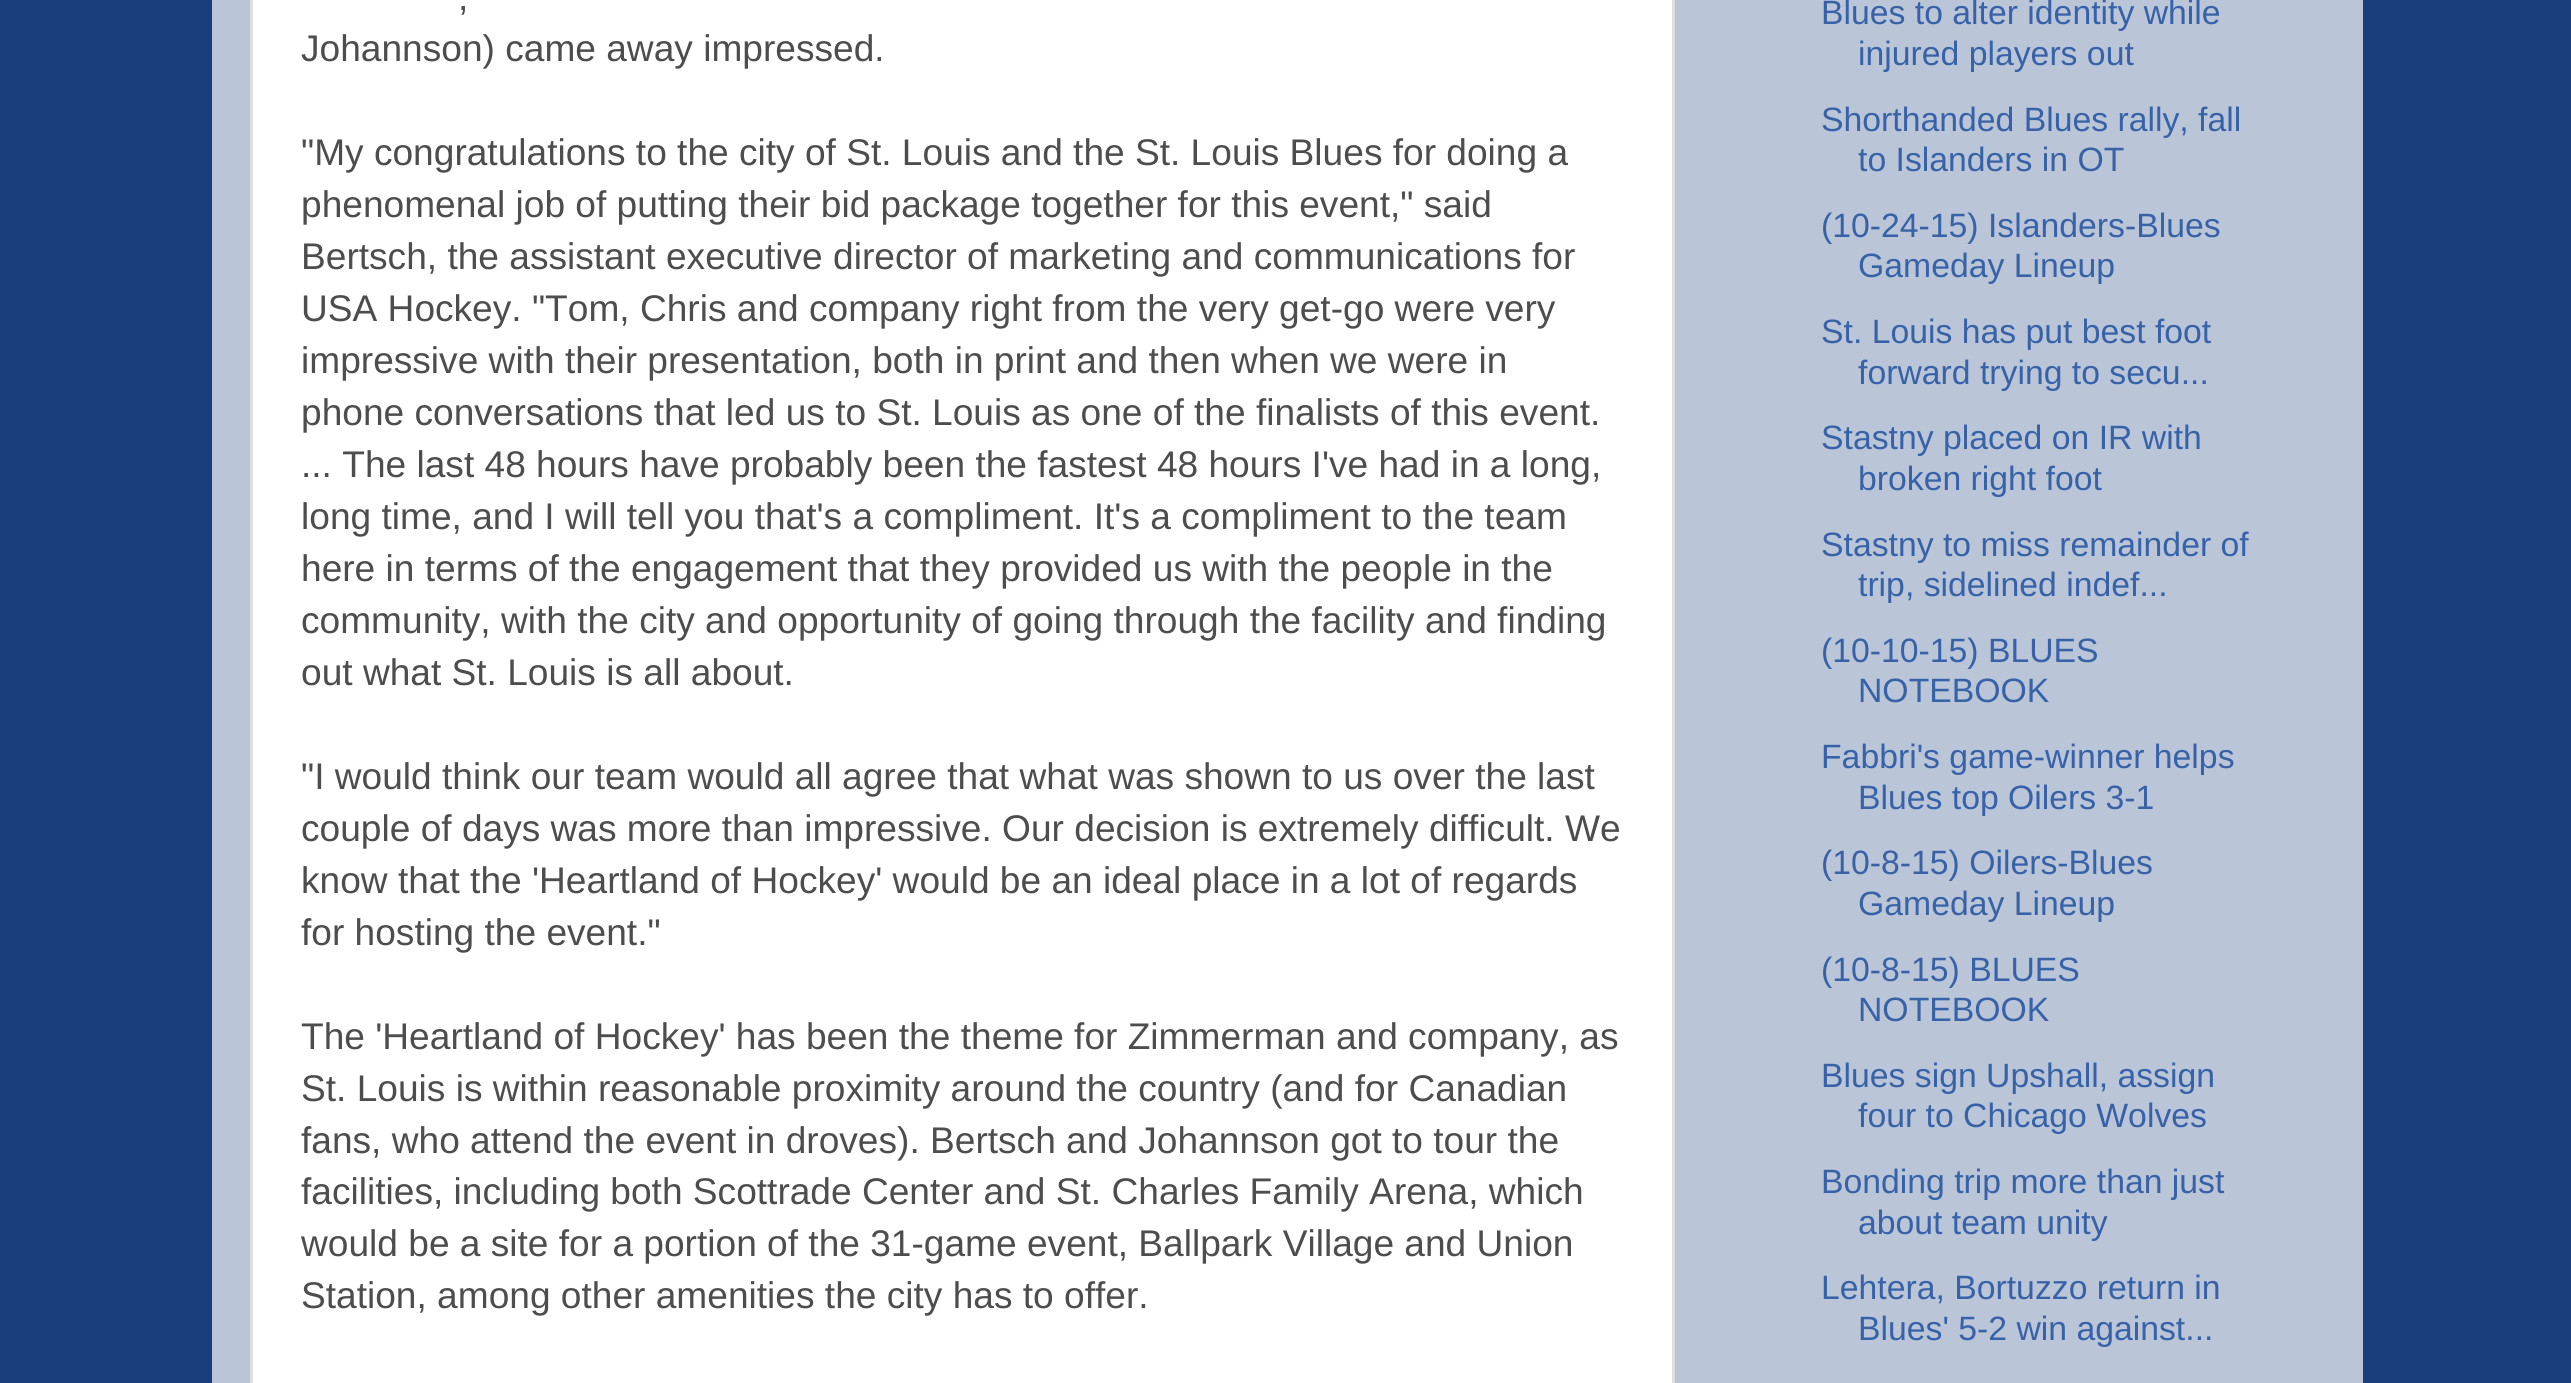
#include <cairo.h>
#include <math.h>
#include <stddef.h>

typedef struct { double x, y; const char *s; } line_t;

static void ink(cairo_t *ctx, unsigned color) {
    cairo_set_source_rgb(ctx, (color >> 16) / 255.0, (color >> 8 & 255) / 255.0, (color & 255) / 255.0);
}

int main(void) {
    cairo_surface_t *surface = cairo_image_surface_create(CAIRO_FORMAT_RGB24, 2571, 1383);
    cairo_t *ctx = cairo_create(surface);
    cairo_font_options_t *options = cairo_font_options_create();
    cairo_font_options_set_hint_metrics(options, CAIRO_HINT_METRICS_OFF);
    cairo_font_options_set_hint_style(options, CAIRO_HINT_STYLE_NONE);
    cairo_set_font_options(ctx, options);
    cairo_set_miter_limit(ctx, 4);
    ink(ctx, 0x183E7C);
    cairo_paint(ctx);
    cairo_set_source_rgba(ctx, 1, 1, 1, 0.7);
    cairo_rectangle(ctx, 212, 0, 2151, 1383);
    cairo_fill(ctx);
    ink(ctx, 0xFFFFFF);
    cairo_rectangle(ctx, 251.5, -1.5, 1422, 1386);
    cairo_fill_preserve(ctx);
    ink(ctx, 0xDFDFDF);
    cairo_set_line_width(ctx, 3);
    cairo_stroke(ctx);
    cairo_select_font_face(ctx, "Liberation Sans", CAIRO_FONT_SLANT_NORMAL, CAIRO_FONT_WEIGHT_NORMAL);
    cairo_set_font_size(ctx, 37.1);
    ink(ctx, 0x4D4D4D);
    {
        static const line_t items[] = {
            {458, 10, ","},
            {301, 61, "Johannson) came away impressed."},
            {301, 165, "\"My congratulations to the city of St. Louis and the St. Louis Blues for doing a"},
            {301, 217, "phenomenal job of putting their bid package together for this event,\" said"},
            {301, 269, "Bertsch, the assistant executive director of marketing and communications for"},
            {301, 321, "USA Hockey. \"Tom, Chris and company right from the very get-go were very"},
            {301, 373, "impressive with their presentation, both in print and then when we were in"},
            {301, 425, "phone conversations that led us to St. Louis as one of the finalists of this event."},
            {301, 477, "... The last 48 hours have probably been the fastest 48 hours I've had in a long,"},
            {301, 529, "long time, and I will tell you that's a compliment. It's a compliment to the team"},
            {301, 581, "here in terms of the engagement that they provided us with the people in the"},
            {301, 633, "community, with the city and opportunity of going through the facility and finding"},
            {301, 685, "out what St. Louis is all about."},
            {301, 789, "\"I would think our team would all agree that what was shown to us over the last"},
            {301, 841, "couple of days was more than impressive. Our decision is extremely difficult. We"},
            {301, 893, "know that the 'Heartland of Hockey' would be an ideal place in a lot of regards"},
            {301, 945, "for hosting the event.\""},
            {301, 1049, "The 'Heartland of Hockey' has been the theme for Zimmerman and company, as"},
            {301, 1101, "St. Louis is within reasonable proximity around the country (and for Canadian"},
            {301, 1153, "fans, who attend the event in droves). Bertsch and Johannson got to tour the"},
            {301, 1204, "facilities, including both Scottrade Center and St. Charles Family Arena, which"},
            {301, 1256, "would be a site for a portion of the 31-game event, Ballpark Village and Union"},
            {301, 1308, "Station, among other amenities the city has to offer."},
        };
        for (size_t i = 0; i < sizeof items / sizeof *items; i++) {
            cairo_move_to(ctx, items[i].x, items[i].y);
            cairo_show_text(ctx, items[i].s);
        }
    }
    cairo_set_font_size(ctx, 33.75);
    ink(ctx, 0x3762A7);
    {
        static const line_t items[] = {
            {1821, 24, "Blues to alter identity while"},
            {1858, 65, "injured players out"},
            {1821, 131, "Shorthanded Blues rally, fall"},
            {1858, 171, "to Islanders in OT"},
            {1821, 237, "(10-24-15) Islanders-Blues"},
            {1858, 277, "Gameday Lineup"},
            {1821, 343, "St. Louis has put best foot"},
            {1858, 384, "forward trying to secu..."},
            {1821, 449, "Stastny placed on IR with"},
            {1858, 490, "broken right foot"},
            {1821, 556, "Stastny to miss remainder of"},
            {1858, 596, "trip, sidelined indef..."},
            {1821, 662, "(10-10-15) BLUES"},
            {1858, 702, "NOTEBOOK"},
            {1821, 768, "Fabbri's game-winner helps"},
            {1858, 809, "Blues top Oilers 3-1"},
            {1821, 874, "(10-8-15) Oilers-Blues"},
            {1858, 915, "Gameday Lineup"},
            {1821, 981, "(10-8-15) BLUES"},
            {1858, 1021, "NOTEBOOK"},
            {1821, 1087, "Blues sign Upshall, assign"},
            {1858, 1127, "four to Chicago Wolves"},
            {1821, 1193, "Bonding trip more than just"},
            {1858, 1234, "about team unity"},
            {1821, 1299, "Lehtera, Bortuzzo return in"},
            {1858, 1340, "Blues' 5-2 win against..."},
        };
        for (size_t i = 0; i < sizeof items / sizeof *items; i++) {
            cairo_move_to(ctx, items[i].x, items[i].y);
            cairo_show_text(ctx, items[i].s);
        }
    }
    cairo_surface_write_to_png(surface, "image.png");
    cairo_font_options_destroy(options);
    cairo_destroy(ctx);
    cairo_surface_destroy(surface);
    return 0;
}
